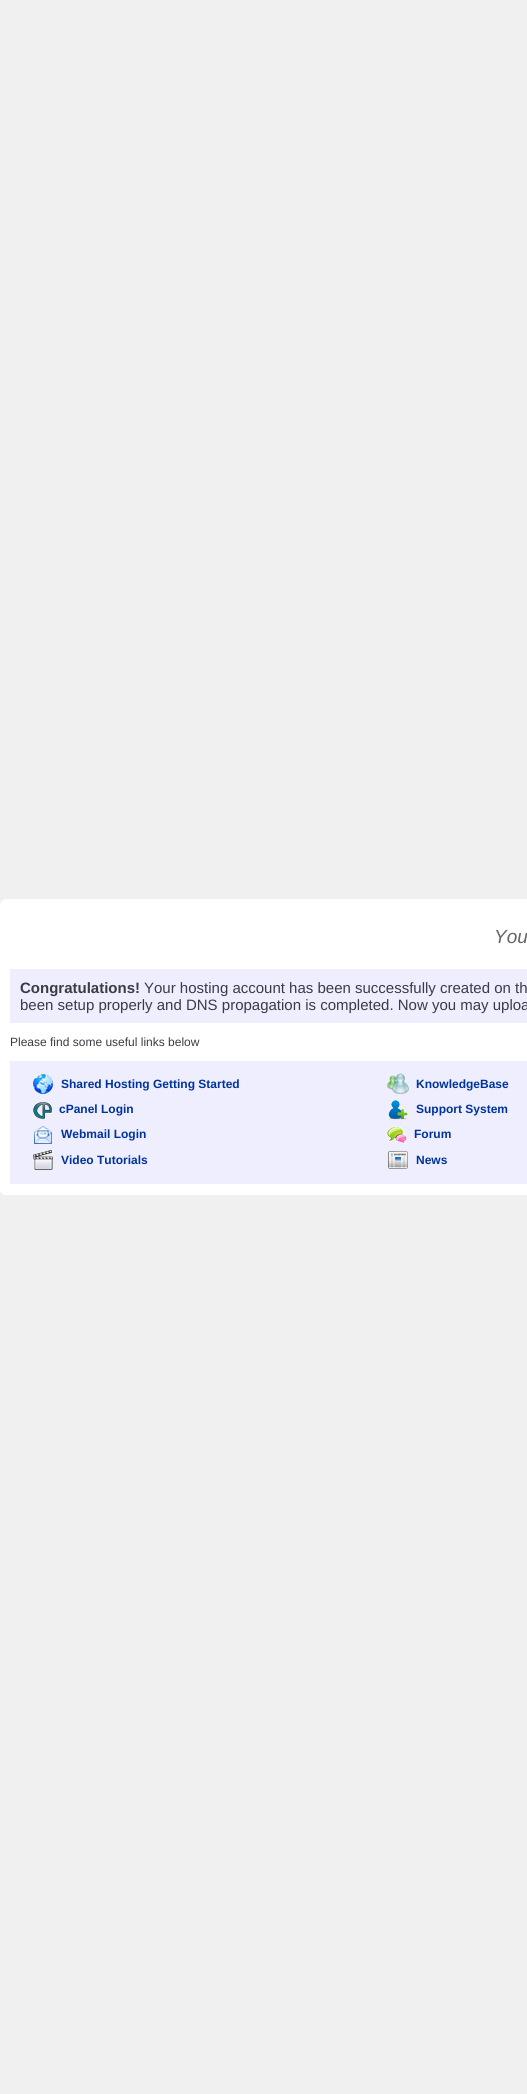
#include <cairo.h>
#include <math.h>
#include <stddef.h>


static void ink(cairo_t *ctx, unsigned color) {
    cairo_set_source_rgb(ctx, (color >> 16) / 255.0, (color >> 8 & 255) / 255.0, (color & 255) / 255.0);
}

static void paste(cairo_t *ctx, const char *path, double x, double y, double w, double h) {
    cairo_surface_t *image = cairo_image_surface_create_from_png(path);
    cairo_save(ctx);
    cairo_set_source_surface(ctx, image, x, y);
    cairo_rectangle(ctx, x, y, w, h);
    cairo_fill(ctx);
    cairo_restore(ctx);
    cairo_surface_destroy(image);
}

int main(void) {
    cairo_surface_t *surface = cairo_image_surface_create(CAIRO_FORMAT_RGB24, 527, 2094);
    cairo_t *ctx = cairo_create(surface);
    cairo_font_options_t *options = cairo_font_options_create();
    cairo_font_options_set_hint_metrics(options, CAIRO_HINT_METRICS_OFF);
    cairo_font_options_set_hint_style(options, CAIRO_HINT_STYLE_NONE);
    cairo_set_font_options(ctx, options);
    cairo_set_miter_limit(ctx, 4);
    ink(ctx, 0xF0F0F0);
    cairo_paint(ctx);
    paste(ctx, "media/1.png", 0, 899, 527, 7);
    ink(ctx, 0xFFFFFF);
    cairo_rectangle(ctx, 0, 906, 527, 282);
    cairo_fill(ctx);
    cairo_select_font_face(ctx, "Liberation Sans", CAIRO_FONT_SLANT_ITALIC, CAIRO_FONT_WEIGHT_NORMAL);
    cairo_set_font_size(ctx, 19);
    ink(ctx, 0x666666);
    cairo_move_to(ctx, 494, 943);
    cairo_show_text(ctx, "You");
    ink(ctx, 0xEEEEFF);
    cairo_rectangle(ctx, 10, 969, 517, 54);
    cairo_fill(ctx);
    cairo_select_font_face(ctx, "Liberation Sans", CAIRO_FONT_SLANT_NORMAL, CAIRO_FONT_WEIGHT_BOLD);
    cairo_set_font_size(ctx, 15);
    ink(ctx, 0x383D43);
    cairo_move_to(ctx, 20, 993);
    cairo_show_text(ctx, "Congratulations!");
    cairo_select_font_face(ctx, "Liberation Sans", CAIRO_FONT_SLANT_NORMAL, CAIRO_FONT_WEIGHT_NORMAL);
    cairo_move_to(ctx, 144, 993);
    cairo_show_text(ctx, "Your hosting account has been successfully created on th");
    cairo_move_to(ctx, 20, 1010);
    cairo_show_text(ctx, "been setup properly and DNS propagation is completed. Now you may uploa");
    cairo_set_font_size(ctx, 12);
    cairo_move_to(ctx, 10, 1046);
    cairo_show_text(ctx, "Please find some useful links below");
    ink(ctx, 0xEEEEFF);
    cairo_rectangle(ctx, 10, 1061, 517, 123);
    cairo_fill(ctx);
    paste(ctx, "media/2.png", 33, 1074, 20, 20);
    cairo_select_font_face(ctx, "Liberation Sans", CAIRO_FONT_SLANT_NORMAL, CAIRO_FONT_WEIGHT_BOLD);
    ink(ctx, 0x003399);
    cairo_move_to(ctx, 61, 1088);
    cairo_show_text(ctx, "Shared Hosting Getting Started");
    paste(ctx, "media/3.png", 33, 1102, 19, 17);
    cairo_move_to(ctx, 59, 1113);
    cairo_show_text(ctx, "cPanel Login");
    paste(ctx, "media/4.png", 34, 1126, 18, 18);
    cairo_move_to(ctx, 61, 1138);
    cairo_show_text(ctx, "Webmail Login");
    paste(ctx, "media/5.png", 33, 1150, 20, 20);
    cairo_move_to(ctx, 61, 1164);
    cairo_show_text(ctx, "Video Tutorials");
    paste(ctx, "media/6.png", 387, 1073, 22, 22);
    cairo_move_to(ctx, 416, 1088);
    cairo_show_text(ctx, "KnowledgeBase");
    paste(ctx, "media/7.png", 388, 1100, 20, 20);
    cairo_move_to(ctx, 416, 1113);
    cairo_show_text(ctx, "Support System");
    paste(ctx, "media/8.png", 387, 1126, 20, 18);
    cairo_move_to(ctx, 414, 1138);
    cairo_show_text(ctx, "Forum");
    paste(ctx, "media/9.png", 387, 1150, 21, 19);
    cairo_move_to(ctx, 416, 1164);
    cairo_show_text(ctx, "News");
    paste(ctx, "media/10.png", 0, 1188, 527, 7);
    cairo_surface_write_to_png(surface, "image.png");
    cairo_font_options_destroy(options);
    cairo_destroy(ctx);
    cairo_surface_destroy(surface);
    return 0;
}
